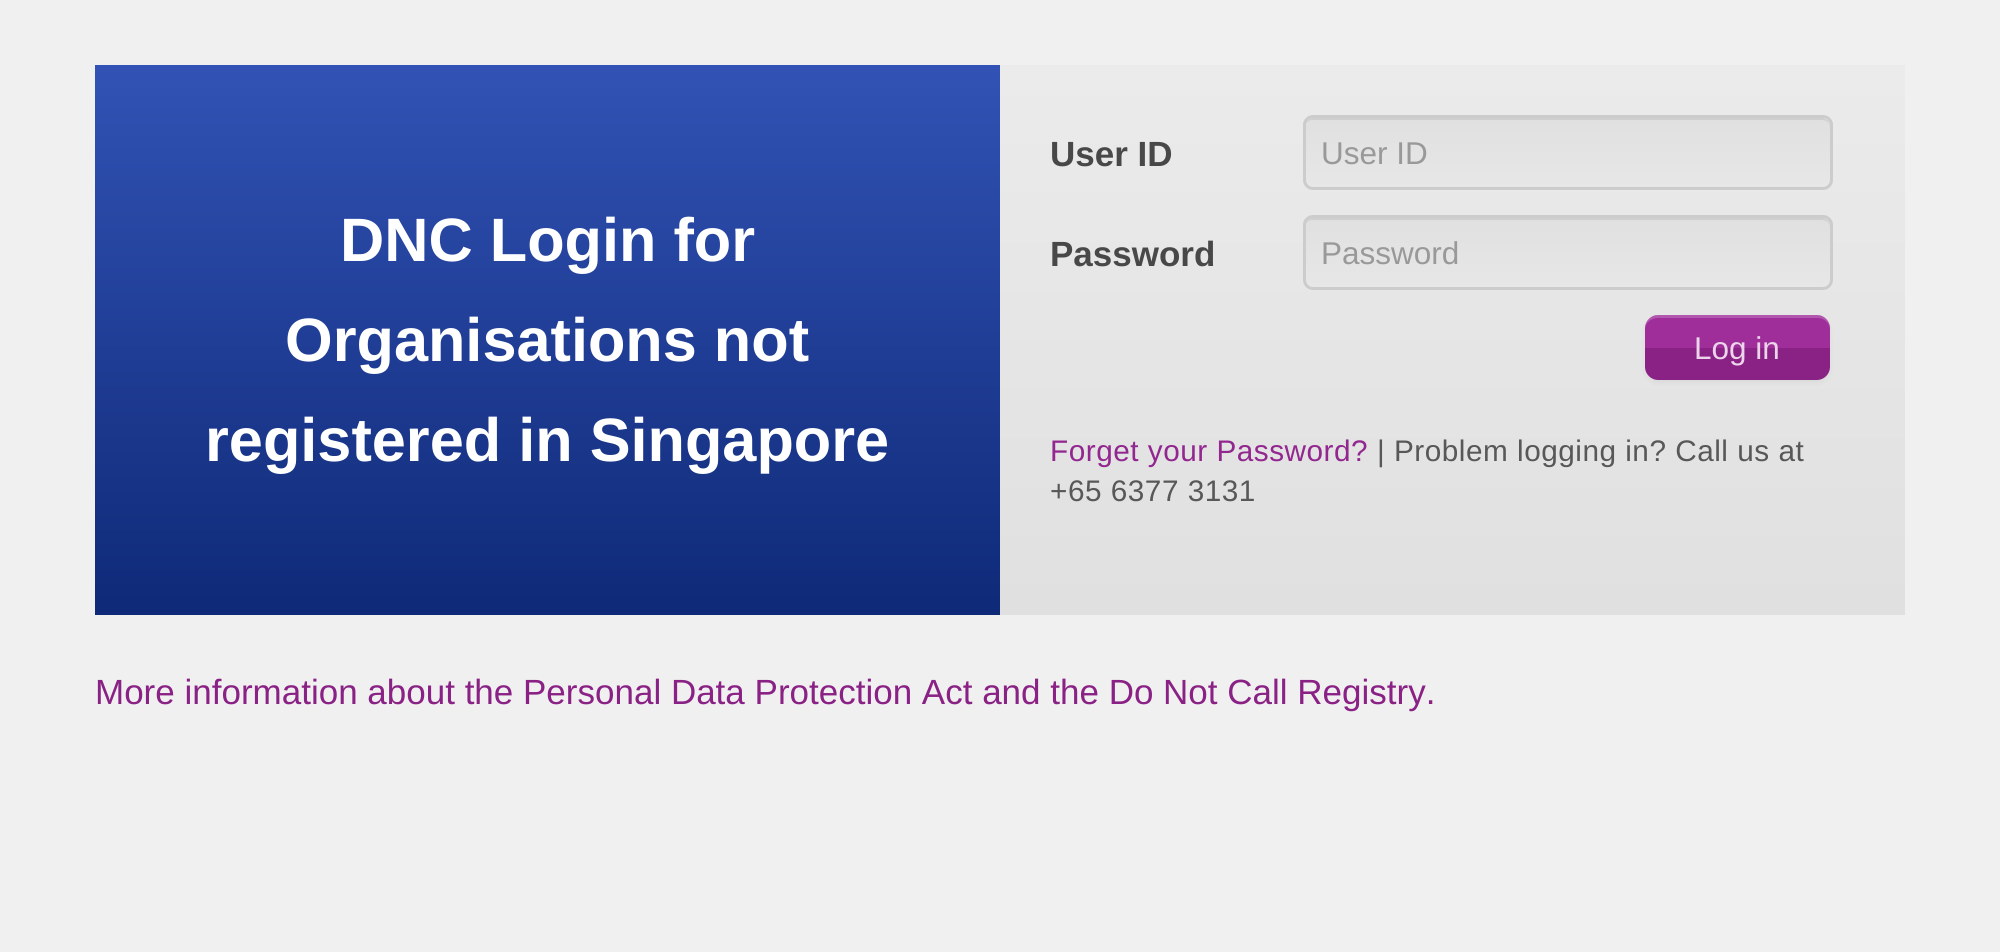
#include <cairo.h>
#include <math.h>
#include <stddef.h>

typedef struct { double x, y; const char *s; } line_t;

static void ink(cairo_t *ctx, unsigned color) {
    cairo_set_source_rgb(ctx, (color >> 16) / 255.0, (color >> 8 & 255) / 255.0, (color & 255) / 255.0);
}

static void write_spaced(cairo_t *ctx, double x, double y, const char *s, double letter, double word) {
    cairo_move_to(ctx, x, y);
    while (*s) {
        char ch[5] = {0};
        int n = 0;
        do ch[n++] = *s++; while ((*s & 0xC0) == 0x80);
        cairo_show_text(ctx, ch);
        cairo_rel_move_to(ctx, letter + word * (*ch == ' '), 0);
    }
}

static void round_path(cairo_t *ctx, double x, double y, double w, double h, double r) {
    cairo_new_sub_path(ctx);
    cairo_arc(ctx, x + w - r, y + h - r, r, 0, M_PI / 2);
    cairo_arc(ctx, x + r, y + h - r, r, M_PI / 2, M_PI);
    cairo_arc(ctx, x + r, y + r, r, M_PI, 1.5 * M_PI);
    cairo_arc(ctx, x + w - r, y + r, r, 1.5 * M_PI, 2 * M_PI);
    cairo_close_path(ctx);
}

static void blur_box(cairo_t *ctx, double x, double y, double w, double h, double r, double blur, double alpha) {
    cairo_push_group_with_content(ctx, CAIRO_CONTENT_ALPHA);
    cairo_set_operator(ctx, CAIRO_OPERATOR_SOURCE);
    for (int i = 15; i >= -15 && fmin(w, h) + blur * i / 3 > 0; i -= 2) {
        double e = blur * i / 6;
        cairo_set_source_rgba(ctx, 0, 0, 0, alpha * erfc((i - 1) / 8.5) / 2);
        round_path(ctx, x - e, y - e, w + 2 * e, h + 2 * e, fmax(0, fmin(r + e + blur * .6, fmin(w, h) / 2 + e)));
        cairo_fill(ctx);
    }
    cairo_pattern_t *soft = cairo_pop_group(ctx);
    cairo_mask(ctx, soft);
    cairo_pattern_destroy(soft);
}

int main(void) {
    cairo_surface_t *surface = cairo_image_surface_create(CAIRO_FORMAT_RGB24, 2000, 952);
    cairo_t *ctx = cairo_create(surface);
    cairo_font_options_t *options = cairo_font_options_create();
    cairo_font_options_set_hint_metrics(options, CAIRO_HINT_METRICS_OFF);
    cairo_font_options_set_hint_style(options, CAIRO_HINT_STYLE_NONE);
    cairo_set_font_options(ctx, options);
    cairo_set_miter_limit(ctx, 4);
    cairo_pattern_t *gradient;
    ink(ctx, 0xF0F0F0);
    cairo_paint(ctx);
    gradient = cairo_pattern_create_linear(548, 65, 548, 615);
    cairo_pattern_add_color_stop_rgba(gradient, 0, 0.196, 0.325, 0.71, 1);
    cairo_pattern_add_color_stop_rgba(gradient, 1, 0.055, 0.161, 0.467, 1);
    cairo_set_source(ctx, gradient);
    cairo_pattern_destroy(gradient);
    cairo_rectangle(ctx, 95, 65, 905, 550);
    cairo_fill(ctx);
    cairo_select_font_face(ctx, "Liberation Sans", CAIRO_FONT_SLANT_NORMAL, CAIRO_FONT_WEIGHT_BOLD);
    cairo_set_font_size(ctx, 61.25);
    ink(ctx, 0xFFFFFF);
    {
        static const line_t items[] = {
            {340, 261, "DNC Login for"},
            {285, 361, "Organisations not"},
            {205, 461, "registered in Singapore"},
        };
        for (size_t i = 0; i < sizeof items / sizeof *items; i++) {
            cairo_move_to(ctx, items[i].x, items[i].y);
            cairo_show_text(ctx, items[i].s);
        }
    }
    gradient = cairo_pattern_create_linear(1453, 65, 1453, 615);
    cairo_pattern_add_color_stop_rgba(gradient, 0, 0.922, 0.922, 0.922, 1);
    cairo_pattern_add_color_stop_rgba(gradient, 1, 0.878, 0.878, 0.878, 1);
    cairo_set_source(ctx, gradient);
    cairo_pattern_destroy(gradient);
    cairo_rectangle(ctx, 1000, 65, 905, 550);
    cairo_fill(ctx);
    cairo_set_font_size(ctx, 35);
    ink(ctx, 0x484848);
    cairo_move_to(ctx, 1050, 166);
    cairo_show_text(ctx, "User ID");
    cairo_save(ctx);
    round_path(ctx, 1303, 115, 530, 75, 10);
    cairo_clip(ctx);
    gradient = cairo_pattern_create_linear(1568, 117, 1568, 188);
    cairo_pattern_add_color_stop_rgba(gradient, 0, 0.878, 0.878, 0.878, 1);
    cairo_pattern_add_color_stop_rgba(gradient, 1, 0.906, 0.906, 0.906, 1);
    cairo_set_source(ctx, gradient);
    cairo_pattern_destroy(gradient);
    cairo_rectangle(ctx, 1303, 118, 530, 70);
    cairo_fill(ctx);
    cairo_restore(ctx);
    ink(ctx, 0xCFCFCF);
    cairo_new_path(ctx);
    cairo_move_to(ctx, 1312, 120);
    cairo_line_to(ctx, 1822, 120);
    cairo_curve_to(ctx, 1827, 120, 1830, 123, 1830, 128);
    cairo_line_to(ctx, 1830, 126);
    cairo_curve_to(ctx, 1830, 122, 1826, 118, 1822, 118);
    cairo_line_to(ctx, 1313, 118);
    cairo_curve_to(ctx, 1309, 118, 1305, 122, 1305, 126);
    cairo_line_to(ctx, 1305, 128);
    cairo_curve_to(ctx, 1305, 123, 1308, 120, 1312, 120);
    cairo_close_path(ctx);
    cairo_fill(ctx);
    round_path(ctx, 1304.5, 116.5, 527, 72, 8.5);
    ink(ctx, 0xCCCCCC);
    cairo_set_line_width(ctx, 3);
    cairo_stroke(ctx);
    cairo_select_font_face(ctx, "Liberation Sans", CAIRO_FONT_SLANT_NORMAL, CAIRO_FONT_WEIGHT_NORMAL);
    cairo_set_font_size(ctx, 31.5);
    ink(ctx, 0x999999);
    cairo_move_to(ctx, 1321, 164);
    cairo_show_text(ctx, "User ID");
    cairo_select_font_face(ctx, "Liberation Sans", CAIRO_FONT_SLANT_NORMAL, CAIRO_FONT_WEIGHT_BOLD);
    cairo_set_font_size(ctx, 35);
    ink(ctx, 0x484848);
    cairo_move_to(ctx, 1050, 266);
    cairo_show_text(ctx, "Password");
    cairo_save(ctx);
    round_path(ctx, 1303, 215, 530, 75, 10);
    cairo_clip(ctx);
    gradient = cairo_pattern_create_linear(1568, 217, 1568, 288);
    cairo_pattern_add_color_stop_rgba(gradient, 0, 0.878, 0.878, 0.878, 1);
    cairo_pattern_add_color_stop_rgba(gradient, 1, 0.906, 0.906, 0.906, 1);
    cairo_set_source(ctx, gradient);
    cairo_pattern_destroy(gradient);
    cairo_rectangle(ctx, 1303, 218, 530, 70);
    cairo_fill(ctx);
    cairo_restore(ctx);
    ink(ctx, 0xCFCFCF);
    cairo_new_path(ctx);
    cairo_move_to(ctx, 1312, 220);
    cairo_line_to(ctx, 1822, 220);
    cairo_curve_to(ctx, 1827, 220, 1830, 223, 1830, 228);
    cairo_line_to(ctx, 1830, 226);
    cairo_curve_to(ctx, 1830, 222, 1826, 218, 1822, 218);
    cairo_line_to(ctx, 1313, 218);
    cairo_curve_to(ctx, 1309, 218, 1305, 222, 1305, 226);
    cairo_line_to(ctx, 1305, 228);
    cairo_curve_to(ctx, 1305, 223, 1308, 220, 1312, 220);
    cairo_close_path(ctx);
    cairo_fill(ctx);
    round_path(ctx, 1304.5, 216.5, 527, 72, 8.5);
    ink(ctx, 0xCCCCCC);
    cairo_stroke(ctx);
    cairo_select_font_face(ctx, "Liberation Sans", CAIRO_FONT_SLANT_NORMAL, CAIRO_FONT_WEIGHT_NORMAL);
    cairo_set_font_size(ctx, 31.5);
    ink(ctx, 0x999999);
    cairo_move_to(ctx, 1321, 264);
    cairo_show_text(ctx, "Password");
    ink(ctx, 0x000000);
    blur_box(ctx, 1645, 318, 185, 65, 13, 2.5, 0.05);
    ink(ctx, 0x9F2D9A);
    cairo_new_path(ctx);
    cairo_move_to(ctx, 1658, 315);
    cairo_line_to(ctx, 1817, 315);
    cairo_curve_to(ctx, 1824, 315, 1830, 321, 1830, 328);
    cairo_line_to(ctx, 1830, 348);
    cairo_line_to(ctx, 1645, 348);
    cairo_line_to(ctx, 1645, 328);
    cairo_curve_to(ctx, 1645, 321, 1651, 315, 1658, 315);
    cairo_close_path(ctx);
    cairo_fill(ctx);
    ink(ctx, 0x8A2185);
    cairo_new_path(ctx);
    cairo_move_to(ctx, 1645, 348);
    cairo_line_to(ctx, 1830, 348);
    cairo_line_to(ctx, 1830, 367);
    cairo_curve_to(ctx, 1830, 374, 1824, 380, 1817, 380);
    cairo_line_to(ctx, 1658, 380);
    cairo_curve_to(ctx, 1651, 380, 1645, 374, 1645, 367);
    cairo_close_path(ctx);
    cairo_fill(ctx);
    cairo_set_source_rgba(ctx, 1, 1, 1, 0.2);
    cairo_new_path(ctx);
    cairo_move_to(ctx, 1658, 318);
    cairo_line_to(ctx, 1818, 318);
    cairo_curve_to(ctx, 1824, 318, 1830, 323, 1830, 330);
    cairo_curve_to(ctx, 1830, 309, 1805, 315, 1790, 315);
    cairo_line_to(ctx, 1684, 315);
    cairo_curve_to(ctx, 1670, 315, 1645, 309, 1645, 330);
    cairo_curve_to(ctx, 1645, 323, 1651, 318, 1658, 318);
    cairo_close_path(ctx);
    cairo_fill(ctx);
    ink(ctx, 0xECD5EB);
    cairo_move_to(ctx, 1694, 359);
    cairo_show_text(ctx, "Log in");
    cairo_set_font_size(ctx, 29.75);
    ink(ctx, 0x92278F);
    write_spaced(ctx, 1050, 461, "Forget your Password?", 0.5, 0);
    ink(ctx, 0x585858);
    write_spaced(ctx, 1377, 461, "| Problem logging in? Call us at", 0.5, 0);
    write_spaced(ctx, 1050, 501, "+65 6377 3131", 0.5, 0);
    cairo_set_font_size(ctx, 35);
    ink(ctx, 0x8A2185);
    cairo_move_to(ctx, 95, 704);
    cairo_show_text(ctx, "More information about the Personal Data Protection Act and the Do Not Call Registry.");
    cairo_surface_write_to_png(surface, "image.png");
    cairo_font_options_destroy(options);
    cairo_destroy(ctx);
    cairo_surface_destroy(surface);
    return 0;
}
